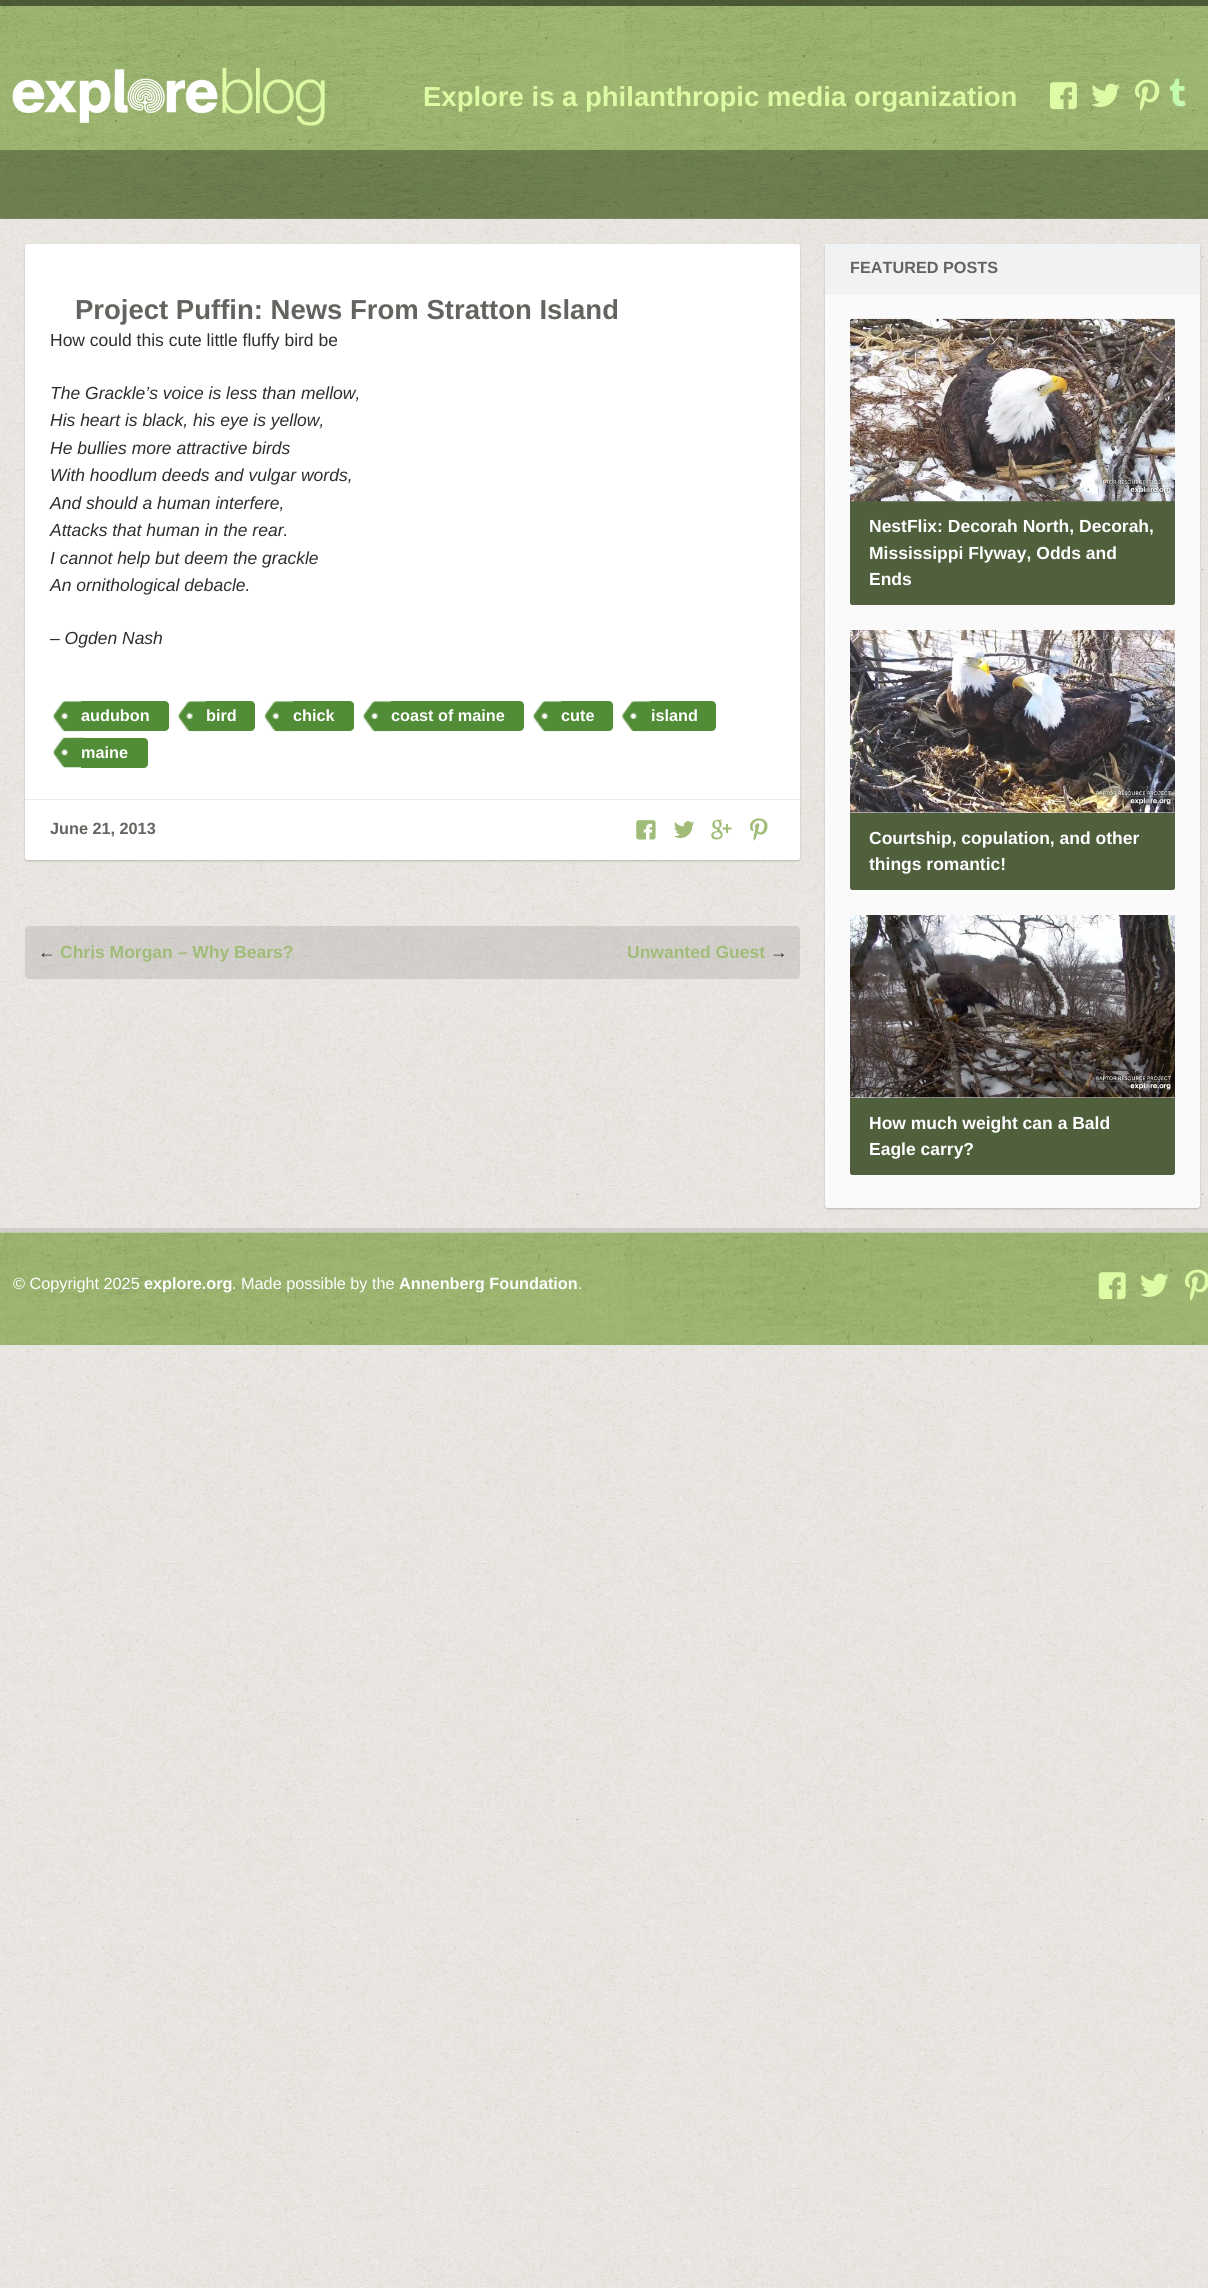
#include <cairo.h>
#include <math.h>
#include <stddef.h>

typedef struct { double x, y; const char *s; } line_t;

static void ink(cairo_t *ctx, unsigned color) {
    cairo_set_source_rgb(ctx, (color >> 16) / 255.0, (color >> 8 & 255) / 255.0, (color & 255) / 255.0);
}

static void round_path(cairo_t *ctx, double x, double y, double w, double h, double r) {
    cairo_new_sub_path(ctx);
    cairo_arc(ctx, x + w - r, y + h - r, r, 0, M_PI / 2);
    cairo_arc(ctx, x + r, y + h - r, r, M_PI / 2, M_PI);
    cairo_arc(ctx, x + r, y + r, r, M_PI, 1.5 * M_PI);
    cairo_arc(ctx, x + w - r, y + r, r, 1.5 * M_PI, 2 * M_PI);
    cairo_close_path(ctx);
}

static void blur_box(cairo_t *ctx, double x, double y, double w, double h, double r, double blur, double alpha) {
    cairo_push_group_with_content(ctx, CAIRO_CONTENT_ALPHA);
    cairo_set_operator(ctx, CAIRO_OPERATOR_SOURCE);
    for (int i = 15; i >= -15 && fmin(w, h) + blur * i / 3 > 0; i -= 2) {
        double e = blur * i / 6;
        cairo_set_source_rgba(ctx, 0, 0, 0, alpha * erfc((i - 1) / 8.5) / 2);
        round_path(ctx, x - e, y - e, w + 2 * e, h + 2 * e, fmax(0, fmin(r + e + blur * .6, fmin(w, h) / 2 + e)));
        cairo_fill(ctx);
    }
    cairo_pattern_t *soft = cairo_pop_group(ctx);
    cairo_mask(ctx, soft);
    cairo_pattern_destroy(soft);
}

static void paste(cairo_t *ctx, const char *path, double x, double y, double w, double h) {
    cairo_surface_t *image = cairo_image_surface_create_from_png(path);
    cairo_save(ctx);
    cairo_set_source_surface(ctx, image, x, y);
    cairo_rectangle(ctx, x, y, w, h);
    cairo_fill(ctx);
    cairo_restore(ctx);
    cairo_surface_destroy(image);
}

int main(void) {
    cairo_surface_t *surface = cairo_image_surface_create(CAIRO_FORMAT_RGB24, 1208, 2288);
    cairo_t *ctx = cairo_create(surface);
    cairo_font_options_t *options = cairo_font_options_create();
    cairo_font_options_set_hint_metrics(options, CAIRO_HINT_METRICS_OFF);
    cairo_font_options_set_hint_style(options, CAIRO_HINT_STYLE_NONE);
    cairo_set_font_options(ctx, options);
    cairo_set_miter_limit(ctx, 4);
    ink(ctx, 0xFFFFFF);
    cairo_paint(ctx);
    paste(ctx, "media/1.png", 0, 218, 1208, 2070);
    paste(ctx, "media/2.png", 0, 0, 1208, 219);
    cairo_set_source_rgba(ctx, 0, 0, 0, 0.5);
    cairo_rectangle(ctx, 0, 0, 1208, 6);
    cairo_fill(ctx);
    paste(ctx, "media/3.png", 12, 69, 206, 54);
    paste(ctx, "media/4.png", 222, 67, 103, 59);
    cairo_select_font_face(ctx, "Liberation Sans", CAIRO_FONT_SLANT_NORMAL, CAIRO_FONT_WEIGHT_BOLD);
    cairo_set_font_size(ctx, 27.5);
    ink(ctx, 0xDDFAA4);
    cairo_move_to(ctx, 423, 106);
    cairo_show_text(ctx, "Explore is a philanthropic media organization");
    paste(ctx, "media/5.png", 1050, 82, 27, 28);
    paste(ctx, "media/6.png", 1091, 83, 29, 24);
    paste(ctx, "media/7.png", 1135, 79, 25, 32);
    paste(ctx, "media/8.png", 1170, 78, 16, 29);
    cairo_set_source_rgba(ctx, 0, 0, 0, 0.3);
    cairo_rectangle(ctx, 0, 150, 1208, 69);
    cairo_fill(ctx);
    ink(ctx, 0x000000);
    blur_box(ctx, 25, 245, 775, 616, 2.5, 1, 0.2);
    ink(ctx, 0xFFFFFF);
    round_path(ctx, 25, 244, 775, 616, 2.5);
    cairo_fill(ctx);
    ink(ctx, 0x65635F);
    cairo_move_to(ctx, 75, 319);
    cairo_show_text(ctx, "Project Puffin: News From Stratton Island");
    cairo_select_font_face(ctx, "Liberation Sans", CAIRO_FONT_SLANT_NORMAL, CAIRO_FONT_WEIGHT_NORMAL);
    cairo_set_font_size(ctx, 17.5);
    ink(ctx, 0x2F2E2C);
    cairo_move_to(ctx, 50, 346);
    cairo_show_text(ctx, "How could this cute little fluffy bird be");
    cairo_select_font_face(ctx, "Liberation Sans", CAIRO_FONT_SLANT_ITALIC, CAIRO_FONT_WEIGHT_NORMAL);
    {
        static const line_t items[] = {
            {50, 399, "The Grackle’s voice is less than mellow,"},
            {50, 426, "His heart is black, his eye is yellow,"},
            {50, 454, "He bullies more attractive birds"},
            {50, 481, "With hoodlum deeds and vulgar words,"},
            {50, 509, "And should a human interfere,"},
            {50, 536, "Attacks that human in the rear."},
            {50, 564, "I cannot help but deem the grackle"},
            {50, 591, "An ornithological debacle."},
            {50, 644, "– Ogden Nash"},
        };
        for (size_t i = 0; i < sizeof items / sizeof *items; i++) {
            cairo_move_to(ctx, items[i].x, items[i].y);
            cairo_show_text(ctx, items[i].s);
        }
    }
    paste(ctx, "media/9.png", 53, 701, 32, 31);
    ink(ctx, 0x518C36);
    cairo_new_path(ctx);
    cairo_move_to(ctx, 81, 701);
    cairo_line_to(ctx, 165, 701);
    cairo_curve_to(ctx, 167, 701, 169, 703, 169, 705);
    cairo_line_to(ctx, 169, 727);
    cairo_curve_to(ctx, 169, 729, 167, 731, 165, 731);
    cairo_line_to(ctx, 81, 731);
    cairo_close_path(ctx);
    cairo_fill(ctx);
    cairo_select_font_face(ctx, "Liberation Sans", CAIRO_FONT_SLANT_NORMAL, CAIRO_FONT_WEIGHT_BOLD);
    cairo_set_font_size(ctx, 16.25);
    ink(ctx, 0xFFFFFF);
    cairo_move_to(ctx, 81, 721);
    cairo_show_text(ctx, "audubon");
    paste(ctx, "media/9.png", 178, 701, 32, 31);
    ink(ctx, 0x518C36);
    cairo_new_path(ctx);
    cairo_move_to(ctx, 206, 701);
    cairo_line_to(ctx, 251, 701);
    cairo_curve_to(ctx, 253, 701, 255, 703, 255, 705);
    cairo_line_to(ctx, 255, 727);
    cairo_curve_to(ctx, 255, 729, 253, 731, 251, 731);
    cairo_line_to(ctx, 206, 731);
    cairo_close_path(ctx);
    cairo_fill(ctx);
    ink(ctx, 0xFFFFFF);
    cairo_move_to(ctx, 206, 721);
    cairo_show_text(ctx, "bird");
    paste(ctx, "media/10.png", 264, 701, 32, 31);
    ink(ctx, 0x518C36);
    cairo_new_path(ctx);
    cairo_move_to(ctx, 293, 701);
    cairo_line_to(ctx, 350, 701);
    cairo_curve_to(ctx, 352, 701, 354, 703, 354, 705);
    cairo_line_to(ctx, 354, 727);
    cairo_curve_to(ctx, 354, 729, 352, 731, 350, 731);
    cairo_line_to(ctx, 293, 731);
    cairo_close_path(ctx);
    cairo_fill(ctx);
    ink(ctx, 0xFFFFFF);
    cairo_move_to(ctx, 293, 721);
    cairo_show_text(ctx, "chick");
    paste(ctx, "media/11.png", 363, 701, 32, 31);
    ink(ctx, 0x518C36);
    cairo_new_path(ctx);
    cairo_move_to(ctx, 391, 701);
    cairo_line_to(ctx, 520, 701);
    cairo_curve_to(ctx, 522, 701, 524, 703, 524, 705);
    cairo_line_to(ctx, 524, 727);
    cairo_curve_to(ctx, 524, 729, 522, 731, 520, 731);
    cairo_line_to(ctx, 391, 731);
    cairo_close_path(ctx);
    cairo_fill(ctx);
    ink(ctx, 0xFFFFFF);
    cairo_move_to(ctx, 391, 721);
    cairo_show_text(ctx, "coast of maine");
    paste(ctx, "media/12.png", 533, 701, 32, 31);
    ink(ctx, 0x518C36);
    cairo_new_path(ctx);
    cairo_move_to(ctx, 561, 701);
    cairo_line_to(ctx, 609, 701);
    cairo_curve_to(ctx, 611, 701, 613, 703, 613, 705);
    cairo_line_to(ctx, 613, 727);
    cairo_curve_to(ctx, 613, 729, 611, 731, 609, 731);
    cairo_line_to(ctx, 561, 731);
    cairo_close_path(ctx);
    cairo_fill(ctx);
    ink(ctx, 0xFFFFFF);
    cairo_move_to(ctx, 561, 721);
    cairo_show_text(ctx, "cute");
    paste(ctx, "media/13.png", 622, 701, 32, 31);
    ink(ctx, 0x518C36);
    cairo_new_path(ctx);
    cairo_move_to(ctx, 650, 701);
    cairo_line_to(ctx, 712, 701);
    cairo_curve_to(ctx, 714, 701, 716, 703, 716, 705);
    cairo_line_to(ctx, 716, 727);
    cairo_curve_to(ctx, 716, 729, 714, 731, 712, 731);
    cairo_line_to(ctx, 650, 731);
    cairo_close_path(ctx);
    cairo_fill(ctx);
    ink(ctx, 0xFFFFFF);
    cairo_move_to(ctx, 651, 721);
    cairo_show_text(ctx, "island");
    paste(ctx, "media/14.png", 53, 737, 32, 31);
    ink(ctx, 0x518C36);
    cairo_new_path(ctx);
    cairo_move_to(ctx, 81, 738);
    cairo_line_to(ctx, 144, 738);
    cairo_curve_to(ctx, 146, 738, 148, 740, 148, 742);
    cairo_line_to(ctx, 148, 764);
    cairo_curve_to(ctx, 148, 766, 146, 768, 144, 768);
    cairo_line_to(ctx, 81, 768);
    cairo_close_path(ctx);
    cairo_fill(ctx);
    ink(ctx, 0xFFFFFF);
    cairo_move_to(ctx, 81, 758);
    cairo_show_text(ctx, "maine");
    ink(ctx, 0xEBEBEC);
    cairo_rectangle(ctx, 25, 799, 775, 1);
    cairo_fill(ctx);
    ink(ctx, 0x65635F);
    cairo_move_to(ctx, 50, 834);
    cairo_show_text(ctx, "June 21, 2013");
    paste(ctx, "media/15.png", 636, 820, 20, 20);
    paste(ctx, "media/16.png", 674, 821, 21, 17);
    paste(ctx, "media/17.png", 711, 819, 21, 21);
    paste(ctx, "media/18.png", 750, 818, 18, 23);
    cairo_set_source_rgba(ctx, 0, 0, 0, 0.1);
    round_path(ctx, 25, 926, 775, 53, 4);
    cairo_fill(ctx);
    cairo_set_font_size(ctx, 17.5);
    ink(ctx, 0x2F2E2C);
    cairo_move_to(ctx, 38, 958);
    cairo_show_text(ctx, "←");
    ink(ctx, 0xA0BC78);
    cairo_move_to(ctx, 60, 958);
    cairo_show_text(ctx, "Chris Morgan – Why Bears?");
    cairo_move_to(ctx, 627, 958);
    cairo_show_text(ctx, "Unwanted Guest");
    ink(ctx, 0x2F2E2C);
    cairo_move_to(ctx, 770, 958);
    cairo_show_text(ctx, "→");
    ink(ctx, 0x000000);
    blur_box(ctx, 825, 245, 375, 964, 2.5, 1, 0.2);
    ink(ctx, 0xFAFAFA);
    round_path(ctx, 825, 244, 375, 964, 2.5);
    cairo_fill(ctx);
    ink(ctx, 0xF1F2F3);
    cairo_rectangle(ctx, 825, 244, 375, 49);
    cairo_fill(ctx);
    ink(ctx, 0xEBEBEC);
    cairo_rectangle(ctx, 825, 293, 375, 1);
    cairo_fill(ctx);
    cairo_set_font_size(ctx, 16.25);
    ink(ctx, 0x65635F);
    cairo_move_to(ctx, 850, 273);
    cairo_show_text(ctx, "FEATURED POSTS");
    ink(ctx, 0x505F3C);
    cairo_new_path(ctx);
    cairo_move_to(ctx, 850, 501);
    cairo_line_to(ctx, 1175, 501);
    cairo_line_to(ctx, 1175, 602.5);
    cairo_curve_to(ctx, 1175, 604, 1174, 605, 1172.5, 605);
    cairo_line_to(ctx, 852.5, 605);
    cairo_curve_to(ctx, 851, 605, 850, 604, 850, 602.5);
    cairo_close_path(ctx);
    cairo_fill(ctx);
    paste(ctx, "media/19.png", 850, 318, 325, 184);
    cairo_set_font_size(ctx, 17.5);
    ink(ctx, 0xFFFFFF);
    {
        static const line_t items[] = {
            {869, 532, "NestFlix: Decorah North, Decorah,"},
            {869, 559, "Mississippi Flyway, Odds and"},
            {869, 585, "Ends"},
        };
        for (size_t i = 0; i < sizeof items / sizeof *items; i++) {
            cairo_move_to(ctx, items[i].x, items[i].y);
            cairo_show_text(ctx, items[i].s);
        }
    }
    paste(ctx, "media/20.png", 850, 630, 325, 183);
    ink(ctx, 0x505F3C);
    cairo_new_path(ctx);
    cairo_move_to(ctx, 850, 813);
    cairo_line_to(ctx, 1175, 813);
    cairo_line_to(ctx, 1175, 887.5);
    cairo_curve_to(ctx, 1175, 889, 1174, 890, 1172.5, 890);
    cairo_line_to(ctx, 852.5, 890);
    cairo_curve_to(ctx, 851, 890, 850, 889, 850, 887.5);
    cairo_close_path(ctx);
    cairo_fill(ctx);
    ink(ctx, 0xFFFFFF);
    cairo_move_to(ctx, 869, 844);
    cairo_show_text(ctx, "Courtship, copulation, and other");
    cairo_move_to(ctx, 869, 870);
    cairo_show_text(ctx, "things romantic!");
    paste(ctx, "media/21.png", 850, 915, 325, 183);
    ink(ctx, 0x505F3C);
    cairo_new_path(ctx);
    cairo_move_to(ctx, 850, 1098);
    cairo_line_to(ctx, 1175, 1098);
    cairo_line_to(ctx, 1175, 1172.5);
    cairo_curve_to(ctx, 1175, 1174, 1174, 1175, 1172.5, 1175);
    cairo_line_to(ctx, 852.5, 1175);
    cairo_curve_to(ctx, 851, 1175, 850, 1174, 850, 1172.5);
    cairo_close_path(ctx);
    cairo_fill(ctx);
    ink(ctx, 0xFFFFFF);
    cairo_move_to(ctx, 869, 1129);
    cairo_show_text(ctx, "How much weight can a Bald");
    cairo_move_to(ctx, 869, 1155);
    cairo_show_text(ctx, "Eagle carry?");
    cairo_set_source_rgba(ctx, 0, 0, 0, 0.1);
    cairo_rectangle(ctx, 0, 1228, 1208, 4);
    cairo_fill(ctx);
    paste(ctx, "media/22.png", 0, 1232, 1208, 113);
    cairo_save(ctx);
    cairo_rectangle(ctx, 13, 1233, 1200, 112);
    cairo_clip(ctx);
    cairo_select_font_face(ctx, "Liberation Sans", CAIRO_FONT_SLANT_NORMAL, CAIRO_FONT_WEIGHT_NORMAL);
    cairo_set_font_size(ctx, 16.25);
    ink(ctx, 0xFFFFFF);
    cairo_move_to(ctx, 13, 1289);
    cairo_show_text(ctx, "© Copyright 2025");
    cairo_restore(ctx);
    cairo_set_font_size(ctx, 16.25);
    ink(ctx, 0xFFFFFF);
    cairo_move_to(ctx, 144, 1289);
    cairo_show_text(ctx, "explore.org");
    cairo_select_font_face(ctx, "Liberation Sans", CAIRO_FONT_SLANT_NORMAL, CAIRO_FONT_WEIGHT_NORMAL);
    cairo_move_to(ctx, 232, 1289);
    cairo_show_text(ctx, ". Made possible by the");
    cairo_select_font_face(ctx, "Liberation Sans", CAIRO_FONT_SLANT_NORMAL, CAIRO_FONT_WEIGHT_BOLD);
    cairo_move_to(ctx, 399, 1289);
    cairo_show_text(ctx, "Annenberg Foundation");
    cairo_select_font_face(ctx, "Liberation Sans", CAIRO_FONT_SLANT_NORMAL, CAIRO_FONT_WEIGHT_NORMAL);
    cairo_move_to(ctx, 578, 1289);
    cairo_show_text(ctx, ".");
    paste(ctx, "media/23.png", 1098, 1272, 28, 28);
    paste(ctx, "media/24.png", 1140, 1273, 29, 24);
    paste(ctx, "media/25.png", 1185, 1269, 23, 32);
    cairo_surface_write_to_png(surface, "image.png");
    cairo_font_options_destroy(options);
    cairo_destroy(ctx);
    cairo_surface_destroy(surface);
    return 0;
}
